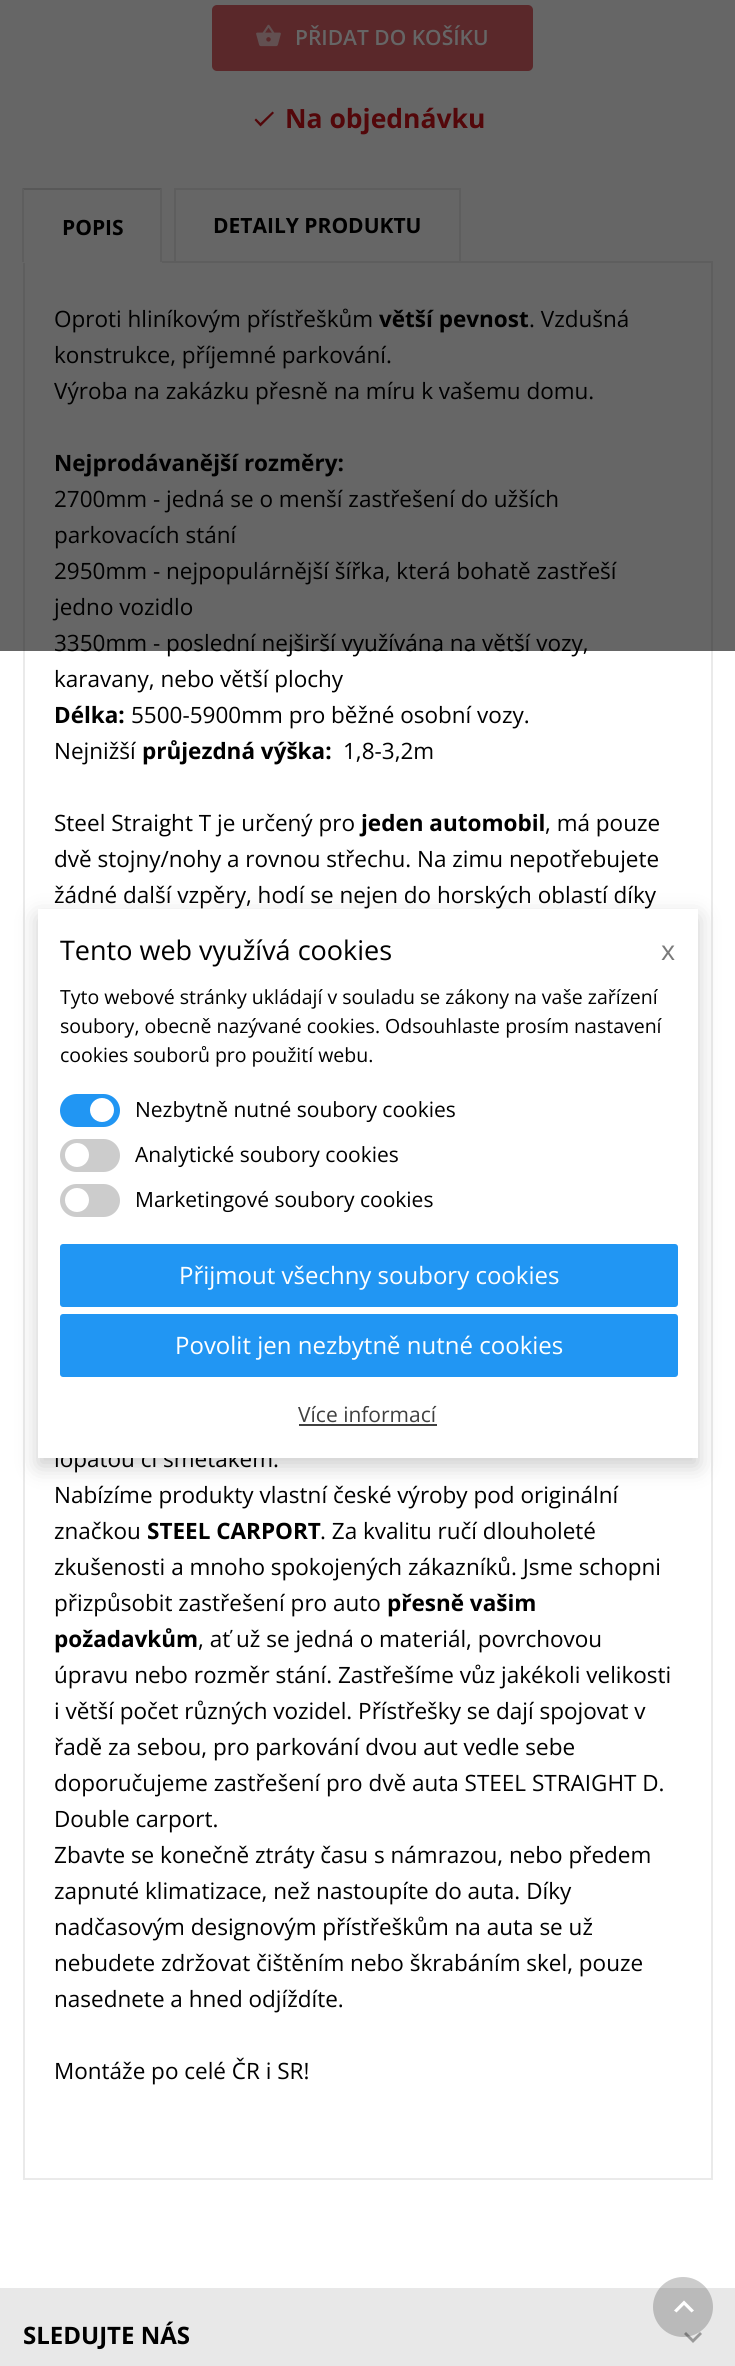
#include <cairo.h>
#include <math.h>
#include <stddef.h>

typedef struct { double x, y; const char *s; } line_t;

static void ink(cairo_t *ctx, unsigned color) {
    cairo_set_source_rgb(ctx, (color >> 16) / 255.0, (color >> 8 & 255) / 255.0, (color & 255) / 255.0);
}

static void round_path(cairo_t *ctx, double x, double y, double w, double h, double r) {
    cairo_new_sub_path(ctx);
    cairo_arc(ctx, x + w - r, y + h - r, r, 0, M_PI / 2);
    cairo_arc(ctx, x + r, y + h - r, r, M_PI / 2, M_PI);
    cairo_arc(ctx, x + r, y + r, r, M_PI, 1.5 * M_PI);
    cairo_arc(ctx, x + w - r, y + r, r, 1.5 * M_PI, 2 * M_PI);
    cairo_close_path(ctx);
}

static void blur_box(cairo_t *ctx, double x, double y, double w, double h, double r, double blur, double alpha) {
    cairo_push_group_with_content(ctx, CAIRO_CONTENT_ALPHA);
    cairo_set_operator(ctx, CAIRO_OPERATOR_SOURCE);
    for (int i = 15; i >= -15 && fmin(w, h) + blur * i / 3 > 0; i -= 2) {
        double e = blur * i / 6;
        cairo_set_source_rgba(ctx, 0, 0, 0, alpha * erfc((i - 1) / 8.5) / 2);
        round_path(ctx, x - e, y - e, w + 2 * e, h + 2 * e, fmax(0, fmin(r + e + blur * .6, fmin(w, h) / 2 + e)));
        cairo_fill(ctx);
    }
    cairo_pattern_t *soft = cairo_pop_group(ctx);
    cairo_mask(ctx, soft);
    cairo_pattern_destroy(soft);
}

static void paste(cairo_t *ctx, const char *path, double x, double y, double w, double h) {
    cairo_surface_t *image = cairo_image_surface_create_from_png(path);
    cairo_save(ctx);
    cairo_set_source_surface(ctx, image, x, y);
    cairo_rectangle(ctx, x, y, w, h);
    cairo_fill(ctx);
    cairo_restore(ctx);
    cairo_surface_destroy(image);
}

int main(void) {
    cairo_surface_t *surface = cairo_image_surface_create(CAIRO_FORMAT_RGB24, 735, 2366);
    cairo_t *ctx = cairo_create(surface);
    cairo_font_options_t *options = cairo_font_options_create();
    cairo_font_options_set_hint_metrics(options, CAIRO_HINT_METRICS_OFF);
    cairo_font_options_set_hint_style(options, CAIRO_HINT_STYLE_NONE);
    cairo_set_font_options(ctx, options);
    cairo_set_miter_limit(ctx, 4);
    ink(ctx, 0xFFFFFF);
    cairo_paint(ctx);
    ink(ctx, 0xE06469);
    round_path(ctx, 212, 5, 321, 66, 5);
    cairo_fill(ctx);
    paste(ctx, "media/1.png", 256, 24, 25, 23);
    cairo_select_font_face(ctx, "Open Sans SemiBold", CAIRO_FONT_SLANT_NORMAL, CAIRO_FONT_WEIGHT_NORMAL);
    cairo_set_font_size(ctx, 21);
    ink(ctx, 0xFFFFFF);
    cairo_move_to(ctx, 295, 45);
    cairo_show_text(ctx, "PŘIDAT DO KOŠÍKU");
    ink(ctx, 0xD01118);
    cairo_new_path(ctx);
    cairo_move_to(ctx, 260.5, 123);
    cairo_line_to(ctx, 272.5, 111.5);
    cairo_line_to(ctx, 274, 113);
    cairo_line_to(ctx, 260.5, 126.5);
    cairo_line_to(ctx, 254.5, 120);
    cairo_line_to(ctx, 256, 118.5);
    cairo_close_path(ctx);
    cairo_fill(ctx);
    cairo_select_font_face(ctx, "Open Sans", CAIRO_FONT_SLANT_NORMAL, CAIRO_FONT_WEIGHT_BOLD);
    cairo_set_font_size(ctx, 26.5);
    cairo_move_to(ctx, 285, 128);
    cairo_show_text(ctx, "Na objednávku");
    cairo_rectangle(ctx, 24, 262, 688, 1917);
    ink(ctx, 0xEAEAEA);
    cairo_stroke(ctx);
    ink(ctx, 0xFFFFFF);
    cairo_rectangle(ctx, 23, 261, 139, 2);
    cairo_fill(ctx);
    ink(ctx, 0xDDDDDD);
    cairo_new_path(ctx);
    cairo_move_to(ctx, 22, 188);
    cairo_line_to(ctx, 162, 188);
    cairo_line_to(ctx, 160, 190);
    cairo_line_to(ctx, 24, 190);
    cairo_close_path(ctx);
    cairo_fill(ctx);
    ink(ctx, 0xEAEAEA);
    cairo_new_path(ctx);
    cairo_move_to(ctx, 162, 188);
    cairo_line_to(ctx, 162, 262);
    cairo_line_to(ctx, 160, 262);
    cairo_line_to(ctx, 160, 190);
    cairo_close_path(ctx);
    cairo_fill(ctx);
    cairo_new_path(ctx);
    cairo_move_to(ctx, 22, 262);
    cairo_line_to(ctx, 22, 188);
    cairo_line_to(ctx, 24, 190);
    cairo_line_to(ctx, 24, 262);
    cairo_close_path(ctx);
    cairo_fill(ctx);
    cairo_set_font_size(ctx, 21);
    ink(ctx, 0x000000);
    cairo_move_to(ctx, 62, 235);
    cairo_show_text(ctx, "POPIS");
    cairo_rectangle(ctx, 175, 189, 285, 73);
    ink(ctx, 0xEAEAEA);
    cairo_stroke(ctx);
    ink(ctx, 0x000000);
    cairo_move_to(ctx, 213, 233);
    cairo_show_text(ctx, "DETAILY PRODUKTU");
    cairo_select_font_face(ctx, "Open Sans", CAIRO_FONT_SLANT_NORMAL, CAIRO_FONT_WEIGHT_NORMAL);
    cairo_set_font_size(ctx, 22.5);
    cairo_move_to(ctx, 54, 327);
    cairo_show_text(ctx, "Oproti hliníkovým přístřeškům");
    cairo_select_font_face(ctx, "Open Sans", CAIRO_FONT_SLANT_NORMAL, CAIRO_FONT_WEIGHT_BOLD);
    cairo_move_to(ctx, 379, 327);
    cairo_show_text(ctx, "větší pevnost");
    cairo_select_font_face(ctx, "Open Sans", CAIRO_FONT_SLANT_NORMAL, CAIRO_FONT_WEIGHT_NORMAL);
    {
        static const line_t items[] = {
            {529, 327, ". Vzdušná"},
            {54, 363, "konstrukce, příjemné parkování."},
            {54, 399, "Výroba na zakázku přesně na míru k vašemu domu."},
        };
        for (size_t i = 0; i < sizeof items / sizeof *items; i++) {
            cairo_move_to(ctx, items[i].x, items[i].y);
            cairo_show_text(ctx, items[i].s);
        }
    }
    cairo_select_font_face(ctx, "Open Sans", CAIRO_FONT_SLANT_NORMAL, CAIRO_FONT_WEIGHT_BOLD);
    cairo_move_to(ctx, 54, 471);
    cairo_show_text(ctx, "Nejprodávanější rozměry:");
    cairo_select_font_face(ctx, "Open Sans", CAIRO_FONT_SLANT_NORMAL, CAIRO_FONT_WEIGHT_NORMAL);
    {
        static const line_t items[] = {
            {54, 507, "2700mm - jedná se o menší zastřešení do užších"},
            {54, 543, "parkovacích stání"},
            {54, 579, "2950mm - nejpopulárnější šířka, která bohatě zastřeší"},
            {54, 615, "jedno vozidlo"},
            {54, 651, "3350mm - poslední nejširší využívána na větší vozy,"},
        };
        for (size_t i = 0; i < sizeof items / sizeof *items; i++) {
            cairo_move_to(ctx, items[i].x, items[i].y);
            cairo_show_text(ctx, items[i].s);
        }
    }
    cairo_set_source_rgba(ctx, 0, 0, 0, 0.6);
    cairo_rectangle(ctx, 0, 0, 735, 651);
    cairo_fill(ctx);
    ink(ctx, 0x000000);
    cairo_move_to(ctx, 54, 687);
    cairo_show_text(ctx, "karavany, nebo větší plochy");
    cairo_select_font_face(ctx, "Open Sans", CAIRO_FONT_SLANT_NORMAL, CAIRO_FONT_WEIGHT_BOLD);
    cairo_move_to(ctx, 54, 723);
    cairo_show_text(ctx, "Délka:");
    cairo_select_font_face(ctx, "Open Sans", CAIRO_FONT_SLANT_NORMAL, CAIRO_FONT_WEIGHT_NORMAL);
    cairo_move_to(ctx, 131, 723);
    cairo_show_text(ctx, "5500-5900mm pro běžné osobní vozy.");
    cairo_move_to(ctx, 54, 759);
    cairo_show_text(ctx, "Nejnižší");
    cairo_select_font_face(ctx, "Open Sans", CAIRO_FONT_SLANT_NORMAL, CAIRO_FONT_WEIGHT_BOLD);
    cairo_move_to(ctx, 142, 759);
    cairo_show_text(ctx, "průjezdná výška:");
    cairo_select_font_face(ctx, "Open Sans", CAIRO_FONT_SLANT_NORMAL, CAIRO_FONT_WEIGHT_NORMAL);
    cairo_move_to(ctx, 343, 759);
    cairo_show_text(ctx, "1,8-3,2m");
    cairo_move_to(ctx, 54, 831);
    cairo_show_text(ctx, "Steel Straight T je určený pro");
    cairo_select_font_face(ctx, "Open Sans", CAIRO_FONT_SLANT_NORMAL, CAIRO_FONT_WEIGHT_BOLD);
    cairo_move_to(ctx, 361, 831);
    cairo_show_text(ctx, "jeden automobil");
    cairo_select_font_face(ctx, "Open Sans", CAIRO_FONT_SLANT_NORMAL, CAIRO_FONT_WEIGHT_NORMAL);
    {
        static const line_t items[] = {
            {545, 831, ", má pouze"},
            {54, 867, "dvě stojny/nohy a rovnou střechu. Na zimu nepotřebujete"},
            {54, 903, "žádné další vzpěry, hodí se nejen do horských oblastí díky"},
            {54, 1467, "lopatou či smetákem."},
            {54, 1503, "Nabízíme produkty vlastní české výroby pod originální"},
            {54, 1539, "značkou"},
        };
        for (size_t i = 0; i < sizeof items / sizeof *items; i++) {
            cairo_move_to(ctx, items[i].x, items[i].y);
            cairo_show_text(ctx, items[i].s);
        }
    }
    cairo_select_font_face(ctx, "Open Sans", CAIRO_FONT_SLANT_NORMAL, CAIRO_FONT_WEIGHT_BOLD);
    cairo_move_to(ctx, 147, 1539);
    cairo_show_text(ctx, "STEEL CARPORT");
    cairo_select_font_face(ctx, "Open Sans", CAIRO_FONT_SLANT_NORMAL, CAIRO_FONT_WEIGHT_NORMAL);
    {
        static const line_t items[] = {
            {320, 1539, ". Za kvalitu ručí dlouholeté"},
            {54, 1575, "zkušenosti a mnoho spokojených zákazníků. Jsme schopni"},
            {54, 1611, "přizpůsobit zastřešení pro auto"},
        };
        for (size_t i = 0; i < sizeof items / sizeof *items; i++) {
            cairo_move_to(ctx, items[i].x, items[i].y);
            cairo_show_text(ctx, items[i].s);
        }
    }
    cairo_select_font_face(ctx, "Open Sans", CAIRO_FONT_SLANT_NORMAL, CAIRO_FONT_WEIGHT_BOLD);
    cairo_move_to(ctx, 387, 1611);
    cairo_show_text(ctx, "přesně vašim");
    cairo_move_to(ctx, 54, 1647);
    cairo_show_text(ctx, "požadavkům");
    cairo_select_font_face(ctx, "Open Sans", CAIRO_FONT_SLANT_NORMAL, CAIRO_FONT_WEIGHT_NORMAL);
    {
        static const line_t items[] = {
            {198, 1647, ", ať už se jedná o materiál, povrchovou"},
            {54, 1683, "úpravu nebo rozměr stání. Zastřešíme vůz jakékoli velikosti"},
            {54, 1719, "i větší počet různých vozidel. Přístřešky se dají spojovat v"},
            {54, 1755, "řadě za sebou, pro parkování dvou aut vedle sebe"},
            {54, 1791, "doporučujeme zastřešení pro dvě auta STEEL STRAIGHT D."},
            {54, 1827, "Double carport."},
            {54, 1863, "Zbavte se konečně ztráty času s námrazou, nebo předem"},
            {54, 1899, "zapnuté klimatizace, než nastoupíte do auta. Díky"},
            {54, 1935, "nadčasovým designovým přístřeškům na auta se už"},
            {54, 1971, "nebudete zdržovat čištěním nebo škrabáním skel, pouze"},
            {54, 2007, "nasednete a hned odjíždíte."},
            {54, 2079, "Montáže po celé ČR i SR!"},
        };
        for (size_t i = 0; i < sizeof items / sizeof *items; i++) {
            cairo_move_to(ctx, items[i].x, items[i].y);
            cairo_show_text(ctx, items[i].s);
        }
    }
    ink(ctx, 0xE8E8E8);
    cairo_rectangle(ctx, 0, 2288, 735, 78);
    cairo_fill(ctx);
    cairo_select_font_face(ctx, "Open Sans", CAIRO_FONT_SLANT_NORMAL, CAIRO_FONT_WEIGHT_BOLD);
    cairo_set_font_size(ctx, 24);
    ink(ctx, 0x000000);
    cairo_move_to(ctx, 23, 2344);
    cairo_show_text(ctx, "SLEDUJTE NÁS");
    ink(ctx, 0x999999);
    cairo_new_path(ctx);
    cairo_move_to(ctx, 686, 2332);
    cairo_line_to(ctx, 693, 2339);
    cairo_line_to(ctx, 700, 2332);
    cairo_line_to(ctx, 702, 2334);
    cairo_line_to(ctx, 693, 2343);
    cairo_line_to(ctx, 684, 2334);
    cairo_close_path(ctx);
    cairo_fill(ctx);
    ink(ctx, 0x000000);
    blur_box(ctx, 38, 917, 660, 549, 0, 11, 0.2);
    ink(ctx, 0xFFFFFF);
    cairo_rectangle(ctx, 38, 909, 660, 549);
    cairo_fill(ctx);
    cairo_select_font_face(ctx, "Open Sans", CAIRO_FONT_SLANT_NORMAL, CAIRO_FONT_WEIGHT_NORMAL);
    cairo_set_font_size(ctx, 27);
    ink(ctx, 0x000000);
    cairo_move_to(ctx, 60, 960);
    cairo_show_text(ctx, "Tento web využívá cookies");
    ink(ctx, 0x7A7A7A);
    cairo_move_to(ctx, 661, 960);
    cairo_show_text(ctx, "x");
    cairo_set_font_size(ctx, 19.5);
    ink(ctx, 0x000000);
    {
        static const line_t items[] = {
            {60, 1004, "Tyto webové stránky ukládají v souladu se zákony na vaše zařízení"},
            {60, 1033, "soubory, obecně nazývané cookies. Odsouhlaste prosím nastavení"},
            {60, 1062, "cookies souborů pro použití webu."},
        };
        for (size_t i = 0; i < sizeof items / sizeof *items; i++) {
            cairo_move_to(ctx, items[i].x, items[i].y);
            cairo_show_text(ctx, items[i].s);
        }
    }
    ink(ctx, 0x2196F3);
    round_path(ctx, 60, 1094, 60, 33, 16.5);
    cairo_fill(ctx);
    ink(ctx, 0xFFFFFF);
    cairo_arc(ctx, 102, 1110, 12, 0, 2 * M_PI);
    cairo_fill(ctx);
    cairo_set_font_size(ctx, 21);
    ink(ctx, 0x000000);
    cairo_move_to(ctx, 135, 1117);
    cairo_show_text(ctx, "Nezbytně nutné soubory cookies");
    ink(ctx, 0xCCCCCC);
    round_path(ctx, 60, 1139, 60, 33, 16.5);
    cairo_fill(ctx);
    ink(ctx, 0xFFFFFF);
    cairo_arc(ctx, 77, 1155, 12, 0, 2 * M_PI);
    cairo_fill(ctx);
    ink(ctx, 0x000000);
    cairo_move_to(ctx, 135, 1162);
    cairo_show_text(ctx, "Analytické soubory cookies");
    ink(ctx, 0xCCCCCC);
    round_path(ctx, 60, 1184, 60, 33, 16.5);
    cairo_fill(ctx);
    ink(ctx, 0xFFFFFF);
    cairo_arc(ctx, 77, 1200, 12, 0, 2 * M_PI);
    cairo_fill(ctx);
    ink(ctx, 0x000000);
    cairo_move_to(ctx, 135, 1207);
    cairo_show_text(ctx, "Marketingové soubory cookies");
    ink(ctx, 0x2196F3);
    round_path(ctx, 61, 1245, 616, 61, 2);
    cairo_fill_preserve(ctx);
    cairo_stroke(ctx);
    cairo_set_font_size(ctx, 24);
    ink(ctx, 0xFFFFFF);
    cairo_move_to(ctx, 179, 1284);
    cairo_show_text(ctx, "Přijmout všechny soubory cookies");
    ink(ctx, 0x2196F3);
    round_path(ctx, 61, 1315, 616, 61, 2);
    cairo_fill_preserve(ctx);
    cairo_stroke(ctx);
    ink(ctx, 0xFFFFFF);
    cairo_move_to(ctx, 175, 1354);
    cairo_show_text(ctx, "Povolit jen nezbytně nutné cookies");
    cairo_set_font_size(ctx, 21);
    ink(ctx, 0x404040);
    cairo_move_to(ctx, 298, 1422);
    cairo_show_text(ctx, "Více informací");
    cairo_rectangle(ctx, 299, 1424, 138, 2);
    cairo_fill(ctx);
    cairo_set_source_rgba(ctx, 0, 0, 0, 0.2);
    cairo_arc(ctx, 683, 2307, 30, 0, 2 * M_PI);
    cairo_fill(ctx);
    ink(ctx, 0xFFFFFF);
    cairo_new_path(ctx);
    cairo_move_to(ctx, 684, 2300.5);
    cairo_line_to(ctx, 694, 2310.5);
    cairo_line_to(ctx, 691.5, 2312.5);
    cairo_line_to(ctx, 684, 2305);
    cairo_line_to(ctx, 676.5, 2312.5);
    cairo_line_to(ctx, 674, 2310.5);
    cairo_close_path(ctx);
    cairo_fill(ctx);
    cairo_surface_write_to_png(surface, "image.png");
    cairo_font_options_destroy(options);
    cairo_destroy(ctx);
    cairo_surface_destroy(surface);
    return 0;
}
